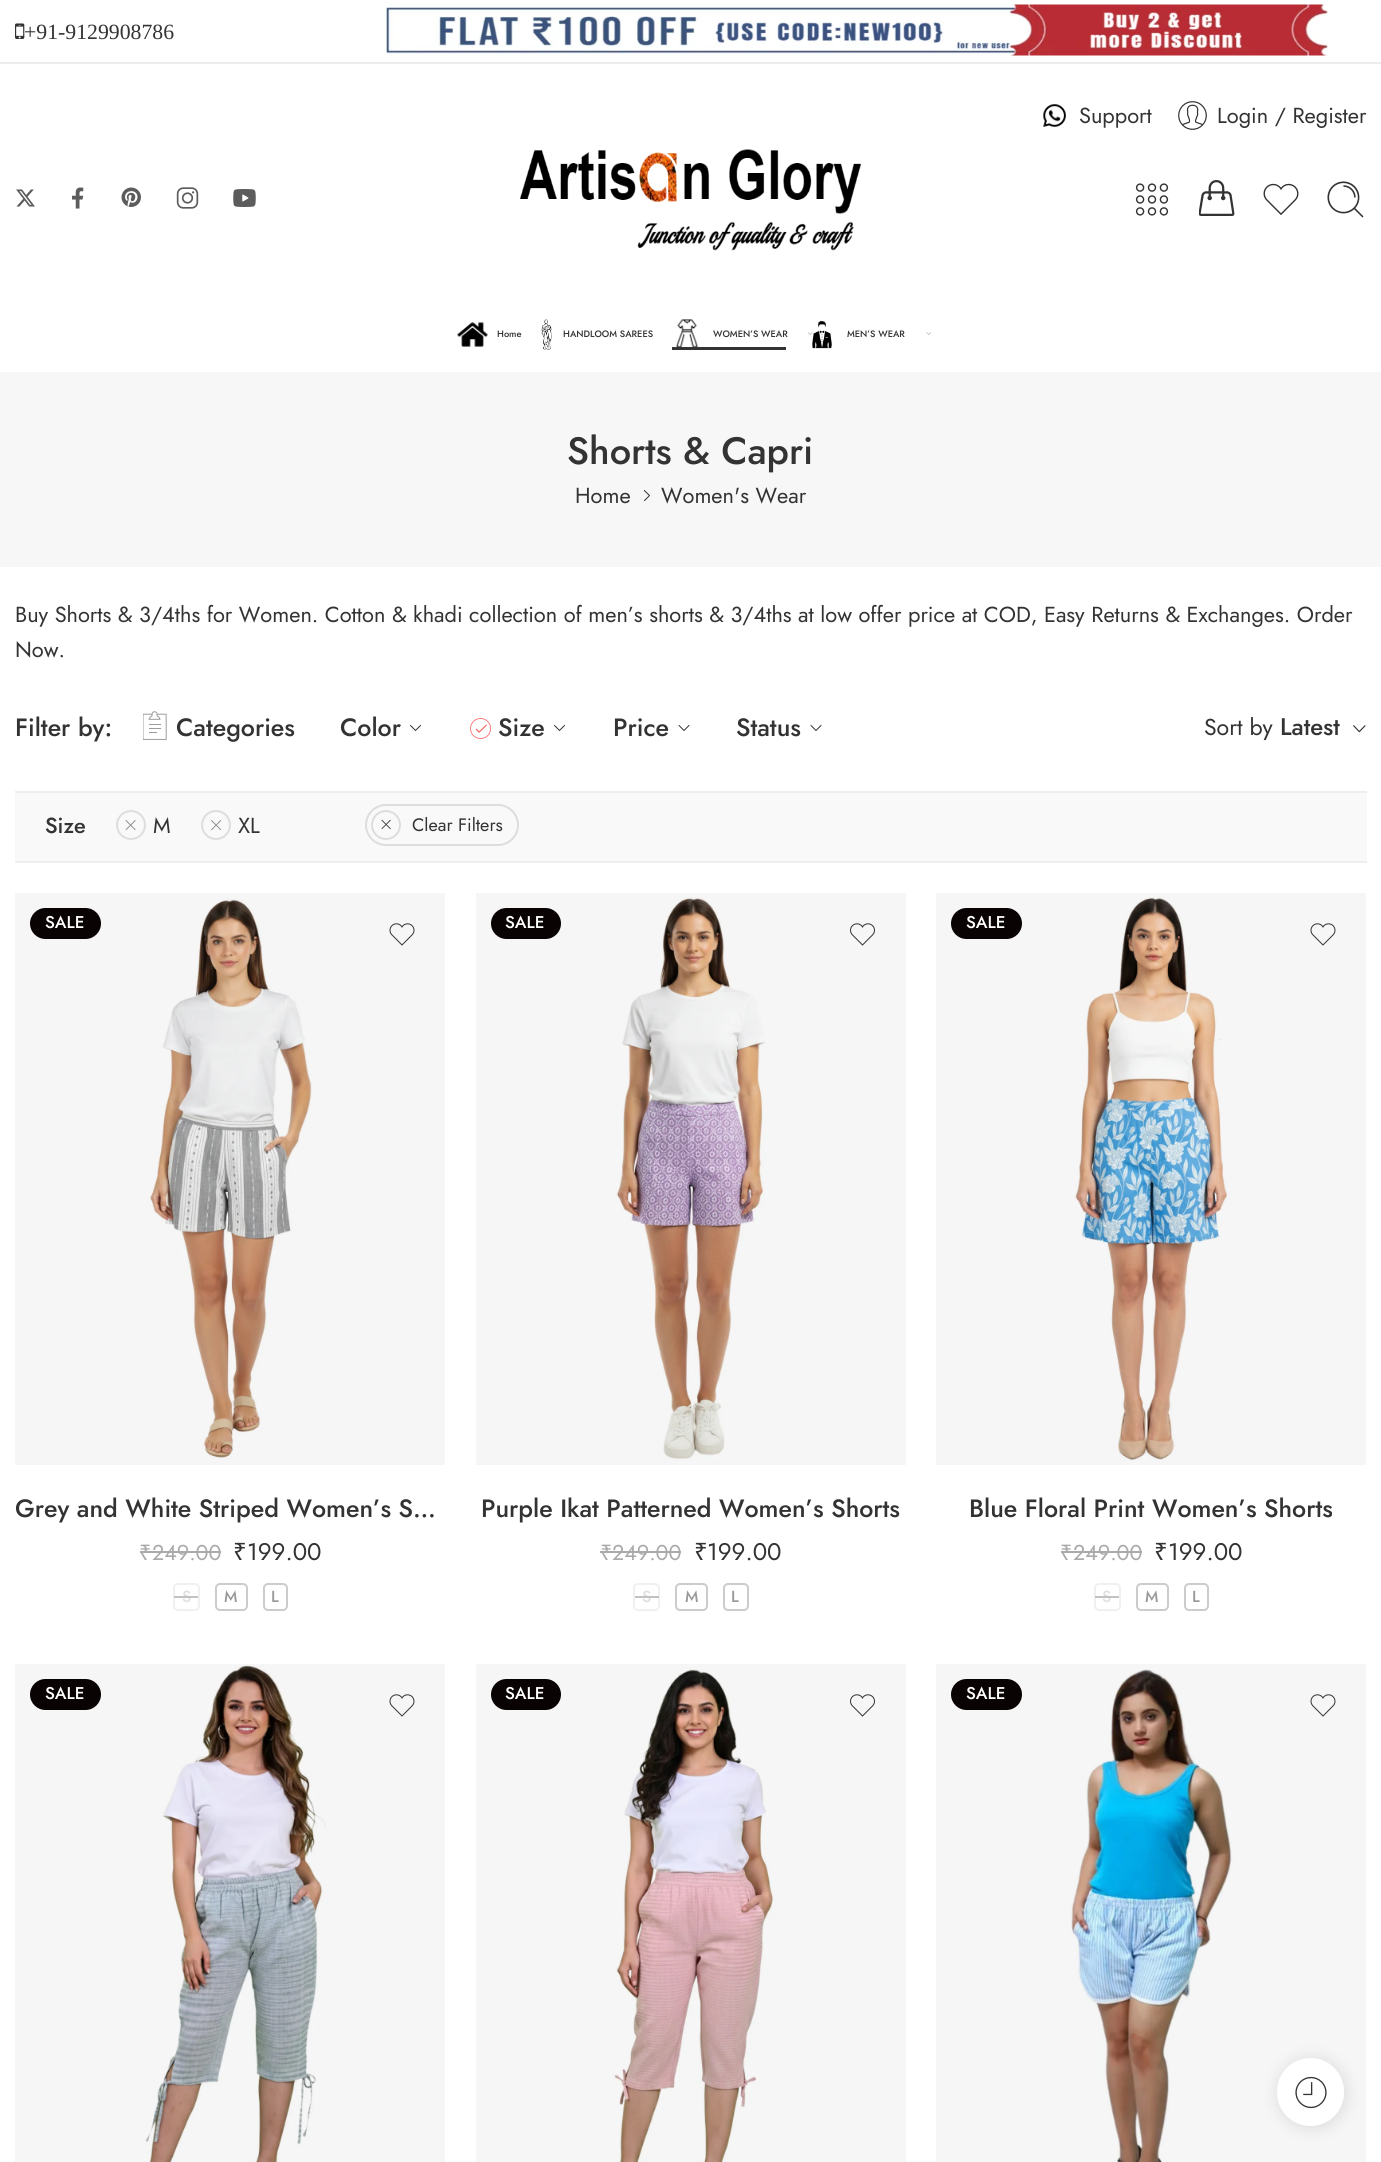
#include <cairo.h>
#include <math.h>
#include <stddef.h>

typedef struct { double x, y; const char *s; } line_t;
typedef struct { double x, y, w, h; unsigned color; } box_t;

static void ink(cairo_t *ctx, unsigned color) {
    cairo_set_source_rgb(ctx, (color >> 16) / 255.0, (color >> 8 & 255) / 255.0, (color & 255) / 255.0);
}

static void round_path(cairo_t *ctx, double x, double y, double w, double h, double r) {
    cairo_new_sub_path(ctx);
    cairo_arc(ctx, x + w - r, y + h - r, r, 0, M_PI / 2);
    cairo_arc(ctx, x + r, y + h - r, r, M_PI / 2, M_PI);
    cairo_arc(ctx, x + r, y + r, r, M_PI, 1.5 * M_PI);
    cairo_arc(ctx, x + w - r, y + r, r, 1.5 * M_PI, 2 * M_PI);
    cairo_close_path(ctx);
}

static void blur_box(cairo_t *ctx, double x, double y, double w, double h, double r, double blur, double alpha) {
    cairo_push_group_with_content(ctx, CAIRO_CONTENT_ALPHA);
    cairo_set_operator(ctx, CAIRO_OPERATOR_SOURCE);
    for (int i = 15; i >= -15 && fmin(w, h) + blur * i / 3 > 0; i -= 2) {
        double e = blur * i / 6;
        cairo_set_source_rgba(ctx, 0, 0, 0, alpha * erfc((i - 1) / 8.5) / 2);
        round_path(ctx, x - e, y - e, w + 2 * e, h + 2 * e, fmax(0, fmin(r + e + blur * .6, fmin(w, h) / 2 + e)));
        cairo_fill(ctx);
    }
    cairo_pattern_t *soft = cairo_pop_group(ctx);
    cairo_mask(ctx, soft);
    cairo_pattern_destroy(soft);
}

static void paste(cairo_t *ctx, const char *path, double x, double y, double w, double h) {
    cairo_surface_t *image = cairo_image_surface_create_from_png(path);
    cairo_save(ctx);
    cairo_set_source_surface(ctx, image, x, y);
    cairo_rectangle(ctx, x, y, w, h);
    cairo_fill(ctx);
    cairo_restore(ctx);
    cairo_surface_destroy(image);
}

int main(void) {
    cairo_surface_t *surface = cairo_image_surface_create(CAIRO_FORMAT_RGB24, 1381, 2162);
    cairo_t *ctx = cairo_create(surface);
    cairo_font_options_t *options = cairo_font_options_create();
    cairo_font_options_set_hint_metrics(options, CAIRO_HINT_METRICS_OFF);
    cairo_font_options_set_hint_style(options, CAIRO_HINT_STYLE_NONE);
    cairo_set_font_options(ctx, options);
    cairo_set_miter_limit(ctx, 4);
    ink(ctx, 0xFFFFFF);
    cairo_paint(ctx);
    ink(ctx, 0xECECEC);
    cairo_rectangle(ctx, 0, 62, 1381, 2);
    cairo_fill(ctx);
    paste(ctx, "media/1.png", 15, 23, 10, 16);
    cairo_select_font_face(ctx, "Liberation Serif", CAIRO_FONT_SLANT_NORMAL, CAIRO_FONT_WEIGHT_NORMAL);
    cairo_set_font_size(ctx, 21.75);
    ink(ctx, 0x333333);
    cairo_move_to(ctx, 24, 39);
    cairo_show_text(ctx, "+91-9129908786");
    paste(ctx, "media/2.png", 383, 4, 946, 52);
    paste(ctx, "media/3.png", 1043, 104, 23, 23);
    cairo_select_font_face(ctx, "Jost", CAIRO_FONT_SLANT_NORMAL, CAIRO_FONT_WEIGHT_NORMAL);
    cairo_move_to(ctx, 1079, 123);
    cairo_show_text(ctx, "Support");
    paste(ctx, "media/4.png", 1178, 101, 29, 29);
    cairo_move_to(ctx, 1217, 123);
    cairo_show_text(ctx, "Login / Register");
    paste(ctx, "media/5.png", 16, 189, 19, 18);
    paste(ctx, "media/6.png", 72, 187, 12, 22);
    paste(ctx, "media/7.png", 121, 187, 20, 20);
    paste(ctx, "media/8.png", 176, 187, 23, 22);
    paste(ctx, "media/9.png", 233, 189, 23, 18);
    paste(ctx, "media/10.png", 520, 149, 342, 102);
    paste(ctx, "media/11.png", 1135, 183, 34, 33);
    paste(ctx, "media/12.png", 1199, 180, 36, 36);
    paste(ctx, "media/13.png", 1263, 183, 36, 32);
    paste(ctx, "media/14.png", 1327, 181, 37, 37);
    paste(ctx, "media/15.png", 457, 322, 31, 25);
    cairo_select_font_face(ctx, "Jost Medium", CAIRO_FONT_SLANT_NORMAL, CAIRO_FONT_WEIGHT_NORMAL);
    cairo_set_font_size(ctx, 9.25);
    cairo_move_to(ctx, 497, 337);
    cairo_show_text(ctx, "Home");
    paste(ctx, "media/16.png", 541, 319, 11, 31);
    cairo_move_to(ctx, 563, 337);
    cairo_show_text(ctx, "HANDLOOM SAREES");
    paste(ctx, "media/17.png", 676, 319, 22, 28);
    cairo_move_to(ctx, 713, 337);
    cairo_show_text(ctx, "WOMEN’S WEAR");
    paste(ctx, "media/18.png", 808, 332, 5, 3);
    cairo_rectangle(ctx, 672, 347, 114, 3);
    cairo_fill(ctx);
    paste(ctx, "media/19.png", 812, 320, 20, 29);
    cairo_move_to(ctx, 847, 337);
    cairo_show_text(ctx, "MEN’S WEAR");
    paste(ctx, "media/20.png", 926, 332, 5, 3);
    ink(ctx, 0xF7F7F7);
    cairo_rectangle(ctx, 0, 372, 1381, 195);
    cairo_fill(ctx);
    cairo_set_font_size(ctx, 38);
    ink(ctx, 0x333333);
    cairo_move_to(ctx, 567, 464);
    cairo_show_text(ctx, "Shorts & Capri");
    cairo_select_font_face(ctx, "Jost", CAIRO_FONT_SLANT_NORMAL, CAIRO_FONT_WEIGHT_NORMAL);
    cairo_set_font_size(ctx, 21.75);
    cairo_move_to(ctx, 575, 503);
    cairo_show_text(ctx, "Home");
    paste(ctx, "media/21.png", 643, 490, 8, 12);
    {
        static const line_t items[] = {
            {661, 503, "Women's Wear"},
            {15, 622, "Buy Shorts & 3/4ths for Women. Cotton & khadi collection of men’s shorts & 3/4ths at low offer price at COD, Easy Returns & Exchanges. Order"},
            {15, 657, "Now."},
        };
        for (size_t i = 0; i < sizeof items / sizeof *items; i++) {
            cairo_move_to(ctx, items[i].x, items[i].y);
            cairo_show_text(ctx, items[i].s);
        }
    }
    cairo_select_font_face(ctx, "Jost Medium", CAIRO_FONT_SLANT_NORMAL, CAIRO_FONT_WEIGHT_NORMAL);
    cairo_set_font_size(ctx, 25);
    cairo_move_to(ctx, 15, 736);
    cairo_show_text(ctx, "Filter by:");
    paste(ctx, "media/22.png", 143, 711, 24, 29);
    cairo_move_to(ctx, 176, 736);
    cairo_show_text(ctx, "Categories");
    cairo_move_to(ctx, 340, 736);
    cairo_show_text(ctx, "Color");
    paste(ctx, "media/23.png", 409, 724, 12, 8);
    paste(ctx, "media/24.png", 470, 718, 21, 21);
    cairo_move_to(ctx, 498, 736);
    cairo_show_text(ctx, "Size");
    paste(ctx, "media/23.png", 553, 724, 12, 8);
    cairo_move_to(ctx, 613, 736);
    cairo_show_text(ctx, "Price");
    paste(ctx, "media/25.png", 678, 724, 12, 7);
    cairo_move_to(ctx, 736, 736);
    cairo_show_text(ctx, "Status");
    paste(ctx, "media/25.png", 810, 724, 12, 7);
    cairo_select_font_face(ctx, "Jost", CAIRO_FONT_SLANT_NORMAL, CAIRO_FONT_WEIGHT_NORMAL);
    cairo_set_font_size(ctx, 23);
    cairo_move_to(ctx, 1204, 735);
    cairo_show_text(ctx, "Sort by");
    cairo_select_font_face(ctx, "Jost Medium", CAIRO_FONT_SLANT_NORMAL, CAIRO_FONT_WEIGHT_NORMAL);
    cairo_set_font_size(ctx, 24);
    cairo_move_to(ctx, 1280, 735);
    cairo_show_text(ctx, "Latest");
    paste(ctx, "media/26.png", 1353, 725, 13, 8);
    {
        static const box_t items[] = {
            {15, 793, 1352, 68, 0xF9F9F9},
            {15, 791, 1352, 2, 0xEEEEEE},
            {15, 861, 1352, 2, 0xEEEEEE},
        };
        for (size_t i = 0; i < sizeof items / sizeof *items; i++) {
            ink(ctx, items[i].color);
            cairo_rectangle(ctx, items[i].x, items[i].y, items[i].w, items[i].h);
            cairo_fill(ctx);
        }
    }
    cairo_set_font_size(ctx, 21.75);
    ink(ctx, 0x333333);
    cairo_move_to(ctx, 45, 833);
    cairo_show_text(ctx, "Size");
    cairo_new_path(ctx);
    cairo_arc(ctx, 131, 825, 14, 0, 2 * M_PI);
    ink(ctx, 0xDDDDDD);
    cairo_stroke(ctx);
    paste(ctx, "media/27.png", 125, 820, 11, 11);
    cairo_select_font_face(ctx, "Jost", CAIRO_FONT_SLANT_NORMAL, CAIRO_FONT_WEIGHT_NORMAL);
    ink(ctx, 0x333333);
    cairo_move_to(ctx, 153, 833);
    cairo_show_text(ctx, "M");
    cairo_new_path(ctx);
    cairo_arc(ctx, 216, 825, 14, 0, 2 * M_PI);
    ink(ctx, 0xDDDDDD);
    cairo_stroke(ctx);
    paste(ctx, "media/28.png", 211, 820, 11, 11);
    ink(ctx, 0x333333);
    cairo_move_to(ctx, 238, 833);
    cairo_show_text(ctx, "XL");
    round_path(ctx, 366, 805, 152, 40, 20);
    ink(ctx, 0xDDDDDD);
    cairo_stroke(ctx);
    cairo_arc(ctx, 386, 825, 14, 0, 2 * M_PI);
    cairo_stroke(ctx);
    paste(ctx, "media/29.png", 381, 819, 10, 11);
    cairo_set_font_size(ctx, 18);
    ink(ctx, 0x333333);
    cairo_move_to(ctx, 412, 831);
    cairo_show_text(ctx, "Clear Filters");
    paste(ctx, "media/30.png", 15, 893, 430, 572);
    ink(ctx, 0x0A0303);
    round_path(ctx, 30, 908, 71, 31, 15.5);
    cairo_fill(ctx);
    cairo_select_font_face(ctx, "Jost Medium", CAIRO_FONT_SLANT_NORMAL, CAIRO_FONT_WEIGHT_NORMAL);
    cairo_set_font_size(ctx, 17);
    ink(ctx, 0xFFFFFF);
    cairo_move_to(ctx, 45, 928);
    cairo_show_text(ctx, "SALE");
    paste(ctx, "media/31.png", 389, 923, 26, 23);
    cairo_set_font_size(ctx, 25);
    ink(ctx, 0x333333);
    cairo_move_to(ctx, 15, 1517);
    cairo_show_text(ctx, "Grey and White Striped Women’s S…");
    cairo_select_font_face(ctx, "Noto Sans", CAIRO_FONT_SLANT_NORMAL, CAIRO_FONT_WEIGHT_NORMAL);
    cairo_set_font_size(ctx, 21.5);
    ink(ctx, 0xAAAAAA);
    cairo_move_to(ctx, 139, 1560);
    cairo_show_text(ctx, "₹");
    cairo_rectangle(ctx, 140, 1551, 12, 2);
    cairo_fill(ctx);
    cairo_rectangle(ctx, 152, 1551, 69, 2);
    cairo_fill(ctx);
    cairo_select_font_face(ctx, "Jost", CAIRO_FONT_SLANT_NORMAL, CAIRO_FONT_WEIGHT_NORMAL);
    cairo_move_to(ctx, 152, 1560);
    cairo_show_text(ctx, "249.00");
    cairo_select_font_face(ctx, "Noto Sans", CAIRO_FONT_SLANT_NORMAL, CAIRO_FONT_WEIGHT_NORMAL);
    cairo_set_font_size(ctx, 24);
    ink(ctx, 0x333333);
    cairo_move_to(ctx, 233, 1560);
    cairo_show_text(ctx, "₹");
    cairo_select_font_face(ctx, "Jost", CAIRO_FONT_SLANT_NORMAL, CAIRO_FONT_WEIGHT_NORMAL);
    cairo_move_to(ctx, 247, 1560);
    cairo_show_text(ctx, "199.00");
    round_path(ctx, 174, 1584, 25, 26, 4);
    ink(ctx, 0xF0F0F0);
    cairo_stroke(ctx);
    cairo_select_font_face(ctx, "Jost Medium", CAIRO_FONT_SLANT_NORMAL, CAIRO_FONT_WEIGHT_NORMAL);
    cairo_set_font_size(ctx, 16);
    ink(ctx, 0xE0E0E0);
    cairo_move_to(ctx, 182, 1602);
    cairo_show_text(ctx, "S");
    ink(ctx, 0xC2C2C2);
    cairo_rectangle(ctx, 174, 1596, 24, 2);
    cairo_fill(ctx);
    round_path(ctx, 216, 1584, 31, 26, 4);
    ink(ctx, 0xCCCCCC);
    cairo_stroke(ctx);
    ink(ctx, 0x999999);
    cairo_move_to(ctx, 224, 1602);
    cairo_show_text(ctx, "M");
    round_path(ctx, 264, 1584, 23, 26, 4);
    ink(ctx, 0xCCCCCC);
    cairo_stroke(ctx);
    ink(ctx, 0x999999);
    cairo_move_to(ctx, 271, 1602);
    cairo_show_text(ctx, "L");
    paste(ctx, "media/32.png", 476, 893, 430, 572);
    ink(ctx, 0x0A0303);
    round_path(ctx, 491, 908, 70, 31, 15.5);
    cairo_fill(ctx);
    cairo_set_font_size(ctx, 17);
    ink(ctx, 0xFFFFFF);
    cairo_move_to(ctx, 505, 928);
    cairo_show_text(ctx, "SALE");
    paste(ctx, "media/33.png", 850, 923, 25, 23);
    cairo_set_font_size(ctx, 25);
    ink(ctx, 0x333333);
    cairo_move_to(ctx, 481, 1517);
    cairo_show_text(ctx, "Purple Ikat Patterned Women’s Shorts");
    cairo_select_font_face(ctx, "Noto Sans", CAIRO_FONT_SLANT_NORMAL, CAIRO_FONT_WEIGHT_NORMAL);
    cairo_set_font_size(ctx, 21.5);
    ink(ctx, 0xAAAAAA);
    cairo_move_to(ctx, 600, 1560);
    cairo_show_text(ctx, "₹");
    cairo_rectangle(ctx, 600, 1551, 12, 2);
    cairo_fill(ctx);
    cairo_rectangle(ctx, 612, 1551, 69, 2);
    cairo_fill(ctx);
    cairo_select_font_face(ctx, "Jost", CAIRO_FONT_SLANT_NORMAL, CAIRO_FONT_WEIGHT_NORMAL);
    cairo_move_to(ctx, 612, 1560);
    cairo_show_text(ctx, "249.00");
    cairo_select_font_face(ctx, "Noto Sans", CAIRO_FONT_SLANT_NORMAL, CAIRO_FONT_WEIGHT_NORMAL);
    cairo_set_font_size(ctx, 24);
    ink(ctx, 0x333333);
    cairo_move_to(ctx, 694, 1560);
    cairo_show_text(ctx, "₹");
    cairo_select_font_face(ctx, "Jost", CAIRO_FONT_SLANT_NORMAL, CAIRO_FONT_WEIGHT_NORMAL);
    cairo_move_to(ctx, 707, 1560);
    cairo_show_text(ctx, "199.00");
    round_path(ctx, 634, 1584, 25, 26, 4);
    ink(ctx, 0xF0F0F0);
    cairo_stroke(ctx);
    cairo_select_font_face(ctx, "Jost Medium", CAIRO_FONT_SLANT_NORMAL, CAIRO_FONT_WEIGHT_NORMAL);
    cairo_set_font_size(ctx, 16);
    ink(ctx, 0xE0E0E0);
    cairo_move_to(ctx, 642, 1602);
    cairo_show_text(ctx, "S");
    ink(ctx, 0xC2C2C2);
    cairo_rectangle(ctx, 635, 1596, 24, 2);
    cairo_fill(ctx);
    round_path(ctx, 676, 1584, 31, 26, 4);
    ink(ctx, 0xCCCCCC);
    cairo_stroke(ctx);
    ink(ctx, 0x999999);
    cairo_move_to(ctx, 685, 1602);
    cairo_show_text(ctx, "M");
    round_path(ctx, 724, 1584, 24, 26, 4);
    ink(ctx, 0xCCCCCC);
    cairo_stroke(ctx);
    ink(ctx, 0x999999);
    cairo_move_to(ctx, 731, 1602);
    cairo_show_text(ctx, "L");
    paste(ctx, "media/34.png", 936, 893, 430, 572);
    ink(ctx, 0x0A0303);
    round_path(ctx, 951, 908, 71, 31, 15.5);
    cairo_fill(ctx);
    cairo_set_font_size(ctx, 17);
    ink(ctx, 0xFFFFFF);
    cairo_move_to(ctx, 966, 928);
    cairo_show_text(ctx, "SALE");
    paste(ctx, "media/31.png", 1310, 923, 26, 23);
    cairo_set_font_size(ctx, 25);
    ink(ctx, 0x333333);
    cairo_move_to(ctx, 969, 1517);
    cairo_show_text(ctx, "Blue Floral Print Women’s Shorts");
    cairo_select_font_face(ctx, "Noto Sans", CAIRO_FONT_SLANT_NORMAL, CAIRO_FONT_WEIGHT_NORMAL);
    cairo_set_font_size(ctx, 21.5);
    ink(ctx, 0xAAAAAA);
    cairo_move_to(ctx, 1060, 1560);
    cairo_show_text(ctx, "₹");
    cairo_rectangle(ctx, 1061, 1551, 12, 2);
    cairo_fill(ctx);
    cairo_select_font_face(ctx, "Jost", CAIRO_FONT_SLANT_NORMAL, CAIRO_FONT_WEIGHT_NORMAL);
    cairo_move_to(ctx, 1073, 1560);
    cairo_show_text(ctx, "249.00");
    cairo_rectangle(ctx, 1073, 1551, 69, 2);
    cairo_fill(ctx);
    cairo_select_font_face(ctx, "Noto Sans", CAIRO_FONT_SLANT_NORMAL, CAIRO_FONT_WEIGHT_NORMAL);
    cairo_set_font_size(ctx, 24);
    ink(ctx, 0x333333);
    cairo_move_to(ctx, 1154, 1560);
    cairo_show_text(ctx, "₹");
    cairo_select_font_face(ctx, "Jost", CAIRO_FONT_SLANT_NORMAL, CAIRO_FONT_WEIGHT_NORMAL);
    cairo_move_to(ctx, 1168, 1560);
    cairo_show_text(ctx, "199.00");
    round_path(ctx, 1095, 1584, 25, 26, 4);
    ink(ctx, 0xF0F0F0);
    cairo_stroke(ctx);
    cairo_select_font_face(ctx, "Jost Medium", CAIRO_FONT_SLANT_NORMAL, CAIRO_FONT_WEIGHT_NORMAL);
    cairo_set_font_size(ctx, 16);
    ink(ctx, 0xE0E0E0);
    cairo_move_to(ctx, 1102, 1602);
    cairo_show_text(ctx, "S");
    ink(ctx, 0xC2C2C2);
    cairo_rectangle(ctx, 1095, 1596, 24, 2);
    cairo_fill(ctx);
    round_path(ctx, 1137, 1584, 31, 26, 4);
    ink(ctx, 0xCCCCCC);
    cairo_stroke(ctx);
    ink(ctx, 0x999999);
    cairo_move_to(ctx, 1145, 1602);
    cairo_show_text(ctx, "M");
    round_path(ctx, 1185, 1584, 23, 26, 4);
    ink(ctx, 0xCCCCCC);
    cairo_stroke(ctx);
    ink(ctx, 0x999999);
    cairo_move_to(ctx, 1192, 1602);
    cairo_show_text(ctx, "L");
    paste(ctx, "media/35.png", 15, 1664, 430, 498);
    ink(ctx, 0x0A0303);
    round_path(ctx, 30, 1679, 71, 31, 15.5);
    cairo_fill(ctx);
    cairo_set_font_size(ctx, 17);
    ink(ctx, 0xFFFFFF);
    cairo_move_to(ctx, 45, 1699);
    cairo_show_text(ctx, "SALE");
    paste(ctx, "media/31.png", 389, 1694, 26, 23);
    paste(ctx, "media/36.png", 476, 1664, 430, 498);
    ink(ctx, 0x0A0303);
    round_path(ctx, 491, 1679, 70, 31, 15.5);
    cairo_fill(ctx);
    ink(ctx, 0xFFFFFF);
    cairo_move_to(ctx, 505, 1699);
    cairo_show_text(ctx, "SALE");
    paste(ctx, "media/33.png", 850, 1694, 25, 23);
    paste(ctx, "media/37.png", 936, 1664, 430, 498);
    ink(ctx, 0x0A0303);
    round_path(ctx, 951, 1679, 71, 31, 15.5);
    cairo_fill(ctx);
    ink(ctx, 0xFFFFFF);
    cairo_move_to(ctx, 966, 1699);
    cairo_show_text(ctx, "SALE");
    paste(ctx, "media/31.png", 1310, 1694, 26, 23);
    ink(ctx, 0x000000);
    blur_box(ctx, 1277, 2058, 70, 71, 35, 7.5, 0.1);
    ink(ctx, 0xFFFFFF);
    round_path(ctx, 1277, 2058, 67, 68, 33.5);
    cairo_fill(ctx);
    paste(ctx, "media/38.png", 1295, 2076, 32, 33);
    cairo_surface_write_to_png(surface, "image.png");
    cairo_font_options_destroy(options);
    cairo_destroy(ctx);
    cairo_surface_destroy(surface);
    return 0;
}
